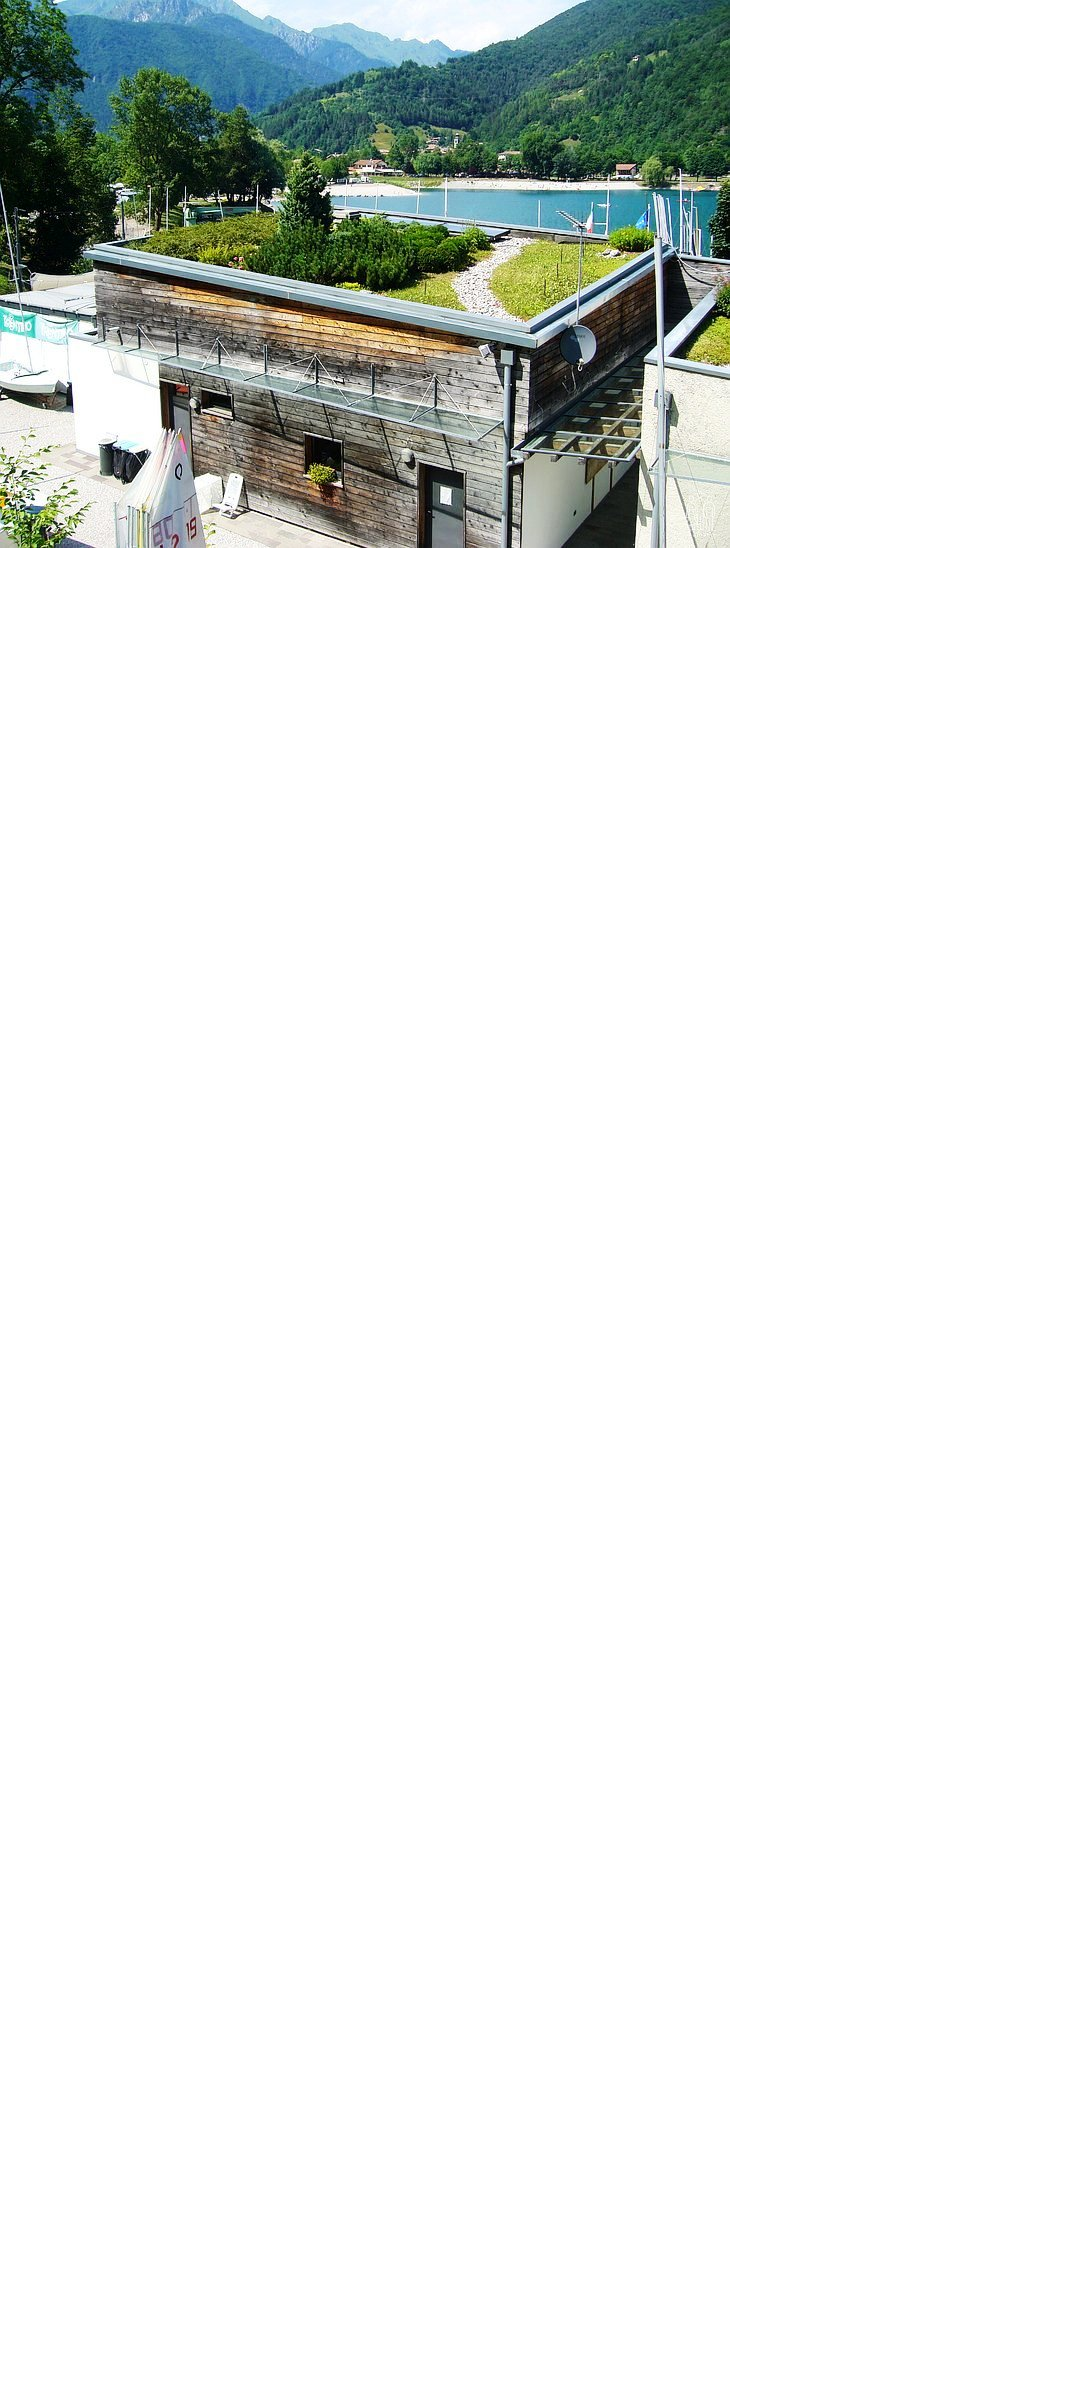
#include <cairo.h>
#include <math.h>
#include <stddef.h>


static void ink(cairo_t *ctx, unsigned color) {
    cairo_set_source_rgb(ctx, (color >> 16) / 255.0, (color >> 8 & 255) / 255.0, (color & 255) / 255.0);
}

static void paste(cairo_t *ctx, const char *path, double x, double y, double w, double h) {
    cairo_surface_t *image = cairo_image_surface_create_from_png(path);
    cairo_save(ctx);
    cairo_set_source_surface(ctx, image, x, y);
    cairo_rectangle(ctx, x, y, w, h);
    cairo_fill(ctx);
    cairo_restore(ctx);
    cairo_surface_destroy(image);
}

int main(void) {
    cairo_surface_t *surface = cairo_image_surface_create(CAIRO_FORMAT_RGB24, 1077, 2383);
    cairo_t *ctx = cairo_create(surface);
    cairo_font_options_t *options = cairo_font_options_create();
    cairo_font_options_set_hint_metrics(options, CAIRO_HINT_METRICS_OFF);
    cairo_font_options_set_hint_style(options, CAIRO_HINT_STYLE_NONE);
    cairo_set_font_options(ctx, options);
    cairo_set_miter_limit(ctx, 4);
    ink(ctx, 0xFFFFFF);
    cairo_paint(ctx);
    paste(ctx, "media/1.png", 0, 0, 730, 548);
    cairo_surface_write_to_png(surface, "image.png");
    cairo_font_options_destroy(options);
    cairo_destroy(ctx);
    cairo_surface_destroy(surface);
    return 0;
}
